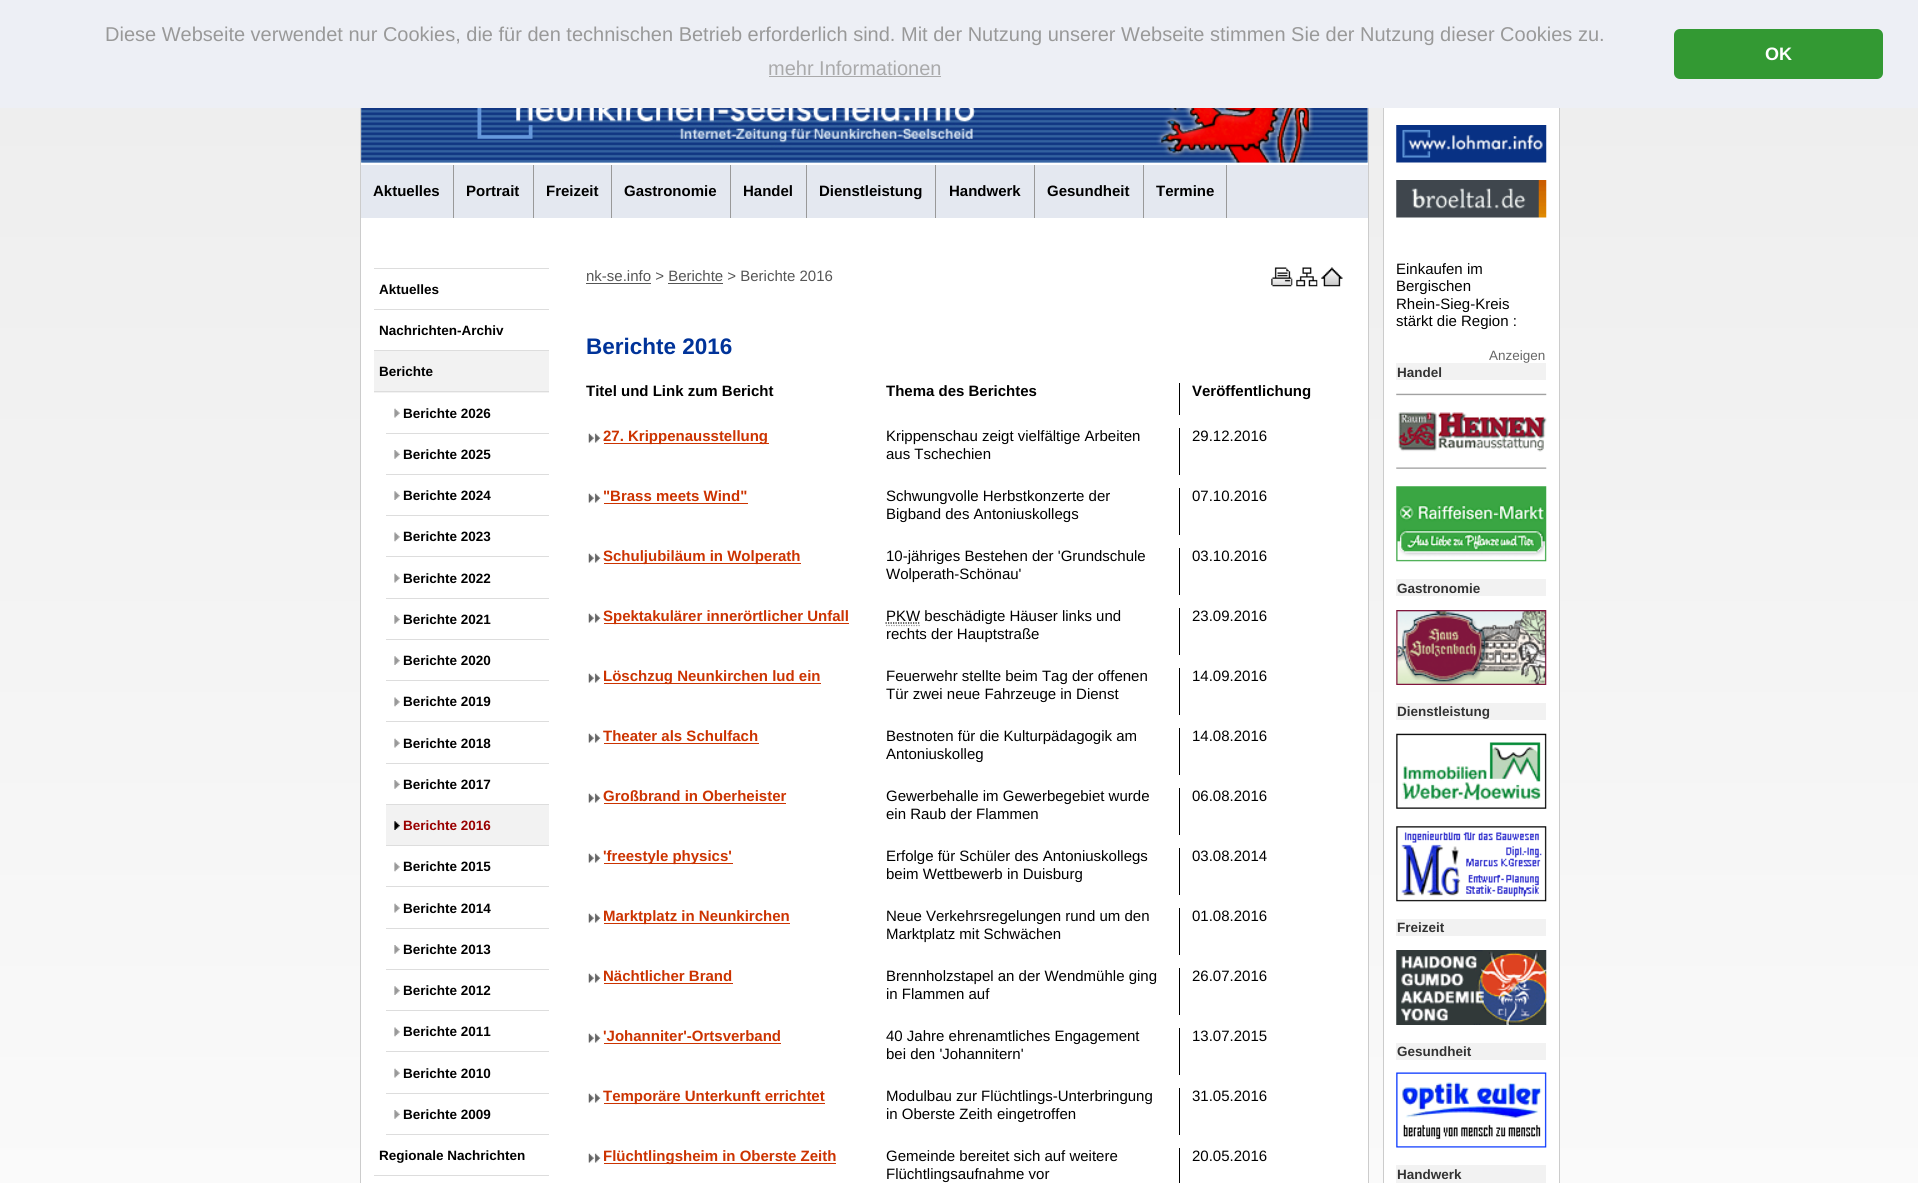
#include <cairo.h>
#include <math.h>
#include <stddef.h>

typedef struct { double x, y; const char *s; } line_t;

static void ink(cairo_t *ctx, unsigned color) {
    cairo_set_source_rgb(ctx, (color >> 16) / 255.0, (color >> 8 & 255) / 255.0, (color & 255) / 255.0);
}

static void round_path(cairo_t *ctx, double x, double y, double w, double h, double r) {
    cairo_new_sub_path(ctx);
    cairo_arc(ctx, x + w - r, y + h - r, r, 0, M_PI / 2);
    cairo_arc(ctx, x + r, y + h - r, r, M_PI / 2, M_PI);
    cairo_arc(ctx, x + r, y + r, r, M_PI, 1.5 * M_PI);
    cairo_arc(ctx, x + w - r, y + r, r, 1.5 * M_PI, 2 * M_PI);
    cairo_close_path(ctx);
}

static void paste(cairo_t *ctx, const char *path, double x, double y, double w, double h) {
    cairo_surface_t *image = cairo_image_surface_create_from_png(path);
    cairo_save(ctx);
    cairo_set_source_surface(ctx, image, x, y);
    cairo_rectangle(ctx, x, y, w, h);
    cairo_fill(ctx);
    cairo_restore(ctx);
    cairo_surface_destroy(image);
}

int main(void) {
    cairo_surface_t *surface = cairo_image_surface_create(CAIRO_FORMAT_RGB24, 1918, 1183);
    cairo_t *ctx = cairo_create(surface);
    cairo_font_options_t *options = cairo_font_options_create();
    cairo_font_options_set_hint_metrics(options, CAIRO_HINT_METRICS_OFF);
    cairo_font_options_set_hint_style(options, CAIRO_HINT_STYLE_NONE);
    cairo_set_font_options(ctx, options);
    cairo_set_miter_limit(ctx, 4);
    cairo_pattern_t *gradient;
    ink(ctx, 0xFFFFFF);
    cairo_paint(ctx);
    gradient = cairo_pattern_create_linear(959, 0, 959, 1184);
    cairo_pattern_add_color_stop_rgba(gradient, 0, 0.929, 0.929, 0.929, 1);
    cairo_pattern_add_color_stop_rgba(gradient, 1, 0.98, 0.98, 0.98, 1);
    cairo_set_source(ctx, gradient);
    cairo_pattern_destroy(gradient);
    cairo_rectangle(ctx, 0, 108, 1918, 1075);
    cairo_fill(ctx);
    ink(ctx, 0xFFFFFF);
    cairo_rectangle(ctx, 361, 108, 1007, 1075);
    cairo_fill(ctx);
    cairo_rectangle(ctx, 360.5, 38.5, 1008, 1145);
    ink(ctx, 0xCCCCCC);
    cairo_set_line_width(ctx, 1);
    cairo_stroke(ctx);
    ink(ctx, 0xFFFFFF);
    cairo_rectangle(ctx, 1384, 108, 175, 1075);
    cairo_fill(ctx);
    cairo_rectangle(ctx, 1383.5, 38.5, 176, 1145);
    ink(ctx, 0xCCCCCC);
    cairo_stroke(ctx);
    ink(ctx, 0xEDEFF5);
    cairo_rectangle(ctx, 0, 0, 1918, 108);
    cairo_fill(ctx);
    cairo_select_font_face(ctx, "Liberation Sans", CAIRO_FONT_SLANT_NORMAL, CAIRO_FONT_WEIGHT_NORMAL);
    cairo_set_font_size(ctx, 20);
    ink(ctx, 0x999999);
    cairo_move_to(ctx, 105, 41);
    cairo_show_text(ctx, "Diese Webseite verwendet nur Cookies, die für den technischen Betrieb erforderlich sind. Mit der Nutzung unserer Webseite stimmen Sie der Nutzung dieser Cookies zu.");
    ink(ctx, 0xAAAAAB);
    cairo_move_to(ctx, 768, 75);
    cairo_show_text(ctx, "mehr Informationen");
    cairo_rectangle(ctx, 769, 76, 172, 1);
    cairo_fill(ctx);
    ink(ctx, 0x339933);
    round_path(ctx, 1674, 29, 209, 50, 6);
    cairo_fill(ctx);
    cairo_select_font_face(ctx, "Liberation Sans", CAIRO_FONT_SLANT_NORMAL, CAIRO_FONT_WEIGHT_BOLD);
    cairo_set_font_size(ctx, 18);
    ink(ctx, 0xFFFFFF);
    cairo_move_to(ctx, 1765, 60);
    cairo_show_text(ctx, "OK");
    paste(ctx, "media/1.png", 361, 108, 1007, 55);
    paste(ctx, "media/2.png", 361, 108, 1007, 55);
    ink(ctx, 0xE4E8F0);
    cairo_rectangle(ctx, 361, 165, 1007, 53);
    cairo_fill(ctx);
    ink(ctx, 0x999999);
    cairo_rectangle(ctx, 453, 165, 1, 53);
    cairo_fill(ctx);
    cairo_set_font_size(ctx, 15);
    ink(ctx, 0x000000);
    cairo_move_to(ctx, 373, 196);
    cairo_show_text(ctx, "Aktuelles");
    ink(ctx, 0x999999);
    cairo_rectangle(ctx, 533, 165, 1, 53);
    cairo_fill(ctx);
    ink(ctx, 0x000000);
    cairo_move_to(ctx, 466, 196);
    cairo_show_text(ctx, "Portrait");
    ink(ctx, 0x999999);
    cairo_rectangle(ctx, 611, 165, 1, 53);
    cairo_fill(ctx);
    ink(ctx, 0x000000);
    cairo_move_to(ctx, 546, 196);
    cairo_show_text(ctx, "Freizeit");
    ink(ctx, 0x999999);
    cairo_rectangle(ctx, 730, 165, 1, 53);
    cairo_fill(ctx);
    ink(ctx, 0x000000);
    cairo_move_to(ctx, 624, 196);
    cairo_show_text(ctx, "Gastronomie");
    ink(ctx, 0x999999);
    cairo_rectangle(ctx, 806, 165, 1, 53);
    cairo_fill(ctx);
    ink(ctx, 0x000000);
    cairo_move_to(ctx, 743, 196);
    cairo_show_text(ctx, "Handel");
    ink(ctx, 0x999999);
    cairo_rectangle(ctx, 935, 165, 1, 53);
    cairo_fill(ctx);
    ink(ctx, 0x000000);
    cairo_move_to(ctx, 819, 196);
    cairo_show_text(ctx, "Dienstleistung");
    ink(ctx, 0x999999);
    cairo_rectangle(ctx, 1034, 165, 1, 53);
    cairo_fill(ctx);
    ink(ctx, 0x000000);
    cairo_move_to(ctx, 949, 196);
    cairo_show_text(ctx, "Handwerk");
    ink(ctx, 0x999999);
    cairo_rectangle(ctx, 1143, 165, 1, 53);
    cairo_fill(ctx);
    ink(ctx, 0x000000);
    cairo_move_to(ctx, 1047, 196);
    cairo_show_text(ctx, "Gesundheit");
    ink(ctx, 0x999999);
    cairo_rectangle(ctx, 1226, 165, 1, 53);
    cairo_fill(ctx);
    ink(ctx, 0x000000);
    cairo_move_to(ctx, 1156, 196);
    cairo_show_text(ctx, "Termine");
    ink(ctx, 0xDDDDDD);
    cairo_rectangle(ctx, 374, 268, 175, 1);
    cairo_fill(ctx);
    cairo_rectangle(ctx, 374, 309, 175, 1);
    cairo_fill(ctx);
    cairo_set_font_size(ctx, 13.5);
    ink(ctx, 0x000000);
    cairo_move_to(ctx, 379, 294);
    cairo_show_text(ctx, "Aktuelles");
    ink(ctx, 0xDDDDDD);
    cairo_rectangle(ctx, 374, 350, 175, 1);
    cairo_fill(ctx);
    ink(ctx, 0x000000);
    cairo_move_to(ctx, 379, 335);
    cairo_show_text(ctx, "Nachrichten-Archiv");
    ink(ctx, 0xF2F2F2);
    cairo_rectangle(ctx, 374, 351, 175, 42);
    cairo_fill(ctx);
    ink(ctx, 0xDDDDDD);
    cairo_rectangle(ctx, 374, 391, 175, 1);
    cairo_fill(ctx);
    ink(ctx, 0x000000);
    cairo_move_to(ctx, 379, 376);
    cairo_show_text(ctx, "Berichte");
    paste(ctx, "media/3.png", 394, 408, 6, 10);
    ink(ctx, 0xDDDDDD);
    cairo_rectangle(ctx, 386, 433, 163, 1);
    cairo_fill(ctx);
    ink(ctx, 0x000000);
    cairo_move_to(ctx, 403, 418);
    cairo_show_text(ctx, "Berichte 2026");
    paste(ctx, "media/4.png", 394, 450, 6, 9);
    ink(ctx, 0xDDDDDD);
    cairo_rectangle(ctx, 386, 474, 163, 1);
    cairo_fill(ctx);
    ink(ctx, 0x000000);
    cairo_move_to(ctx, 403, 459);
    cairo_show_text(ctx, "Berichte 2025");
    paste(ctx, "media/5.png", 394, 491, 6, 9);
    ink(ctx, 0xDDDDDD);
    cairo_rectangle(ctx, 386, 515, 163, 1);
    cairo_fill(ctx);
    ink(ctx, 0x000000);
    cairo_move_to(ctx, 403, 500);
    cairo_show_text(ctx, "Berichte 2024");
    paste(ctx, "media/6.png", 394, 532, 6, 10);
    ink(ctx, 0xDDDDDD);
    cairo_rectangle(ctx, 386, 556, 163, 1);
    cairo_fill(ctx);
    ink(ctx, 0x000000);
    cairo_move_to(ctx, 403, 541);
    cairo_show_text(ctx, "Berichte 2023");
    paste(ctx, "media/3.png", 394, 573, 6, 10);
    ink(ctx, 0xDDDDDD);
    cairo_rectangle(ctx, 386, 598, 163, 1);
    cairo_fill(ctx);
    ink(ctx, 0x000000);
    cairo_move_to(ctx, 403, 583);
    cairo_show_text(ctx, "Berichte 2022");
    paste(ctx, "media/4.png", 394, 615, 6, 9);
    ink(ctx, 0xDDDDDD);
    cairo_rectangle(ctx, 386, 639, 163, 1);
    cairo_fill(ctx);
    ink(ctx, 0x000000);
    cairo_move_to(ctx, 403, 624);
    cairo_show_text(ctx, "Berichte 2021");
    paste(ctx, "media/5.png", 394, 656, 6, 9);
    ink(ctx, 0xDDDDDD);
    cairo_rectangle(ctx, 386, 680, 163, 1);
    cairo_fill(ctx);
    ink(ctx, 0x000000);
    cairo_move_to(ctx, 403, 665);
    cairo_show_text(ctx, "Berichte 2020");
    paste(ctx, "media/6.png", 394, 697, 6, 10);
    ink(ctx, 0xDDDDDD);
    cairo_rectangle(ctx, 386, 721, 163, 1);
    cairo_fill(ctx);
    ink(ctx, 0x000000);
    cairo_move_to(ctx, 403, 706);
    cairo_show_text(ctx, "Berichte 2019");
    paste(ctx, "media/3.png", 394, 738, 6, 10);
    ink(ctx, 0xDDDDDD);
    cairo_rectangle(ctx, 386, 763, 163, 1);
    cairo_fill(ctx);
    ink(ctx, 0x000000);
    cairo_move_to(ctx, 403, 748);
    cairo_show_text(ctx, "Berichte 2018");
    paste(ctx, "media/7.png", 394, 780, 6, 9);
    ink(ctx, 0xDDDDDD);
    cairo_rectangle(ctx, 386, 804, 163, 1);
    cairo_fill(ctx);
    ink(ctx, 0x000000);
    cairo_move_to(ctx, 403, 789);
    cairo_show_text(ctx, "Berichte 2017");
    ink(ctx, 0xF2F2F2);
    cairo_rectangle(ctx, 386, 805, 163, 40);
    cairo_fill(ctx);
    paste(ctx, "media/8.png", 394, 821, 6, 9);
    ink(ctx, 0xDDDDDD);
    cairo_rectangle(ctx, 386, 845, 163, 1);
    cairo_fill(ctx);
    ink(ctx, 0x990000);
    cairo_move_to(ctx, 403, 830);
    cairo_show_text(ctx, "Berichte 2016");
    paste(ctx, "media/6.png", 394, 862, 6, 10);
    ink(ctx, 0xDDDDDD);
    cairo_rectangle(ctx, 386, 886, 163, 1);
    cairo_fill(ctx);
    ink(ctx, 0x000000);
    cairo_move_to(ctx, 403, 871);
    cairo_show_text(ctx, "Berichte 2015");
    paste(ctx, "media/3.png", 394, 903, 6, 10);
    ink(ctx, 0xDDDDDD);
    cairo_rectangle(ctx, 386, 928, 163, 1);
    cairo_fill(ctx);
    ink(ctx, 0x000000);
    cairo_move_to(ctx, 403, 913);
    cairo_show_text(ctx, "Berichte 2014");
    paste(ctx, "media/4.png", 394, 945, 6, 9);
    ink(ctx, 0xDDDDDD);
    cairo_rectangle(ctx, 386, 969, 163, 1);
    cairo_fill(ctx);
    ink(ctx, 0x000000);
    cairo_move_to(ctx, 403, 954);
    cairo_show_text(ctx, "Berichte 2013");
    paste(ctx, "media/5.png", 394, 986, 6, 9);
    ink(ctx, 0xDDDDDD);
    cairo_rectangle(ctx, 386, 1010, 163, 1);
    cairo_fill(ctx);
    ink(ctx, 0x000000);
    cairo_move_to(ctx, 403, 995);
    cairo_show_text(ctx, "Berichte 2012");
    paste(ctx, "media/6.png", 394, 1027, 6, 10);
    ink(ctx, 0xDDDDDD);
    cairo_rectangle(ctx, 386, 1051, 163, 1);
    cairo_fill(ctx);
    ink(ctx, 0x000000);
    cairo_move_to(ctx, 403, 1036);
    cairo_show_text(ctx, "Berichte 2011");
    paste(ctx, "media/3.png", 394, 1068, 6, 10);
    ink(ctx, 0xDDDDDD);
    cairo_rectangle(ctx, 386, 1093, 163, 1);
    cairo_fill(ctx);
    ink(ctx, 0x000000);
    cairo_move_to(ctx, 403, 1078);
    cairo_show_text(ctx, "Berichte 2010");
    paste(ctx, "media/4.png", 394, 1110, 6, 9);
    ink(ctx, 0xDDDDDD);
    cairo_rectangle(ctx, 386, 1134, 163, 1);
    cairo_fill(ctx);
    ink(ctx, 0x000000);
    cairo_move_to(ctx, 403, 1119);
    cairo_show_text(ctx, "Berichte 2009");
    ink(ctx, 0xDDDDDD);
    cairo_rectangle(ctx, 374, 1175, 175, 1);
    cairo_fill(ctx);
    ink(ctx, 0x000000);
    cairo_move_to(ctx, 379, 1160);
    cairo_show_text(ctx, "Regionale Nachrichten");
    cairo_select_font_face(ctx, "Liberation Sans", CAIRO_FONT_SLANT_NORMAL, CAIRO_FONT_WEIGHT_NORMAL);
    cairo_set_font_size(ctx, 15);
    ink(ctx, 0x555555);
    cairo_move_to(ctx, 586, 281);
    cairo_show_text(ctx, "nk-se.info > Berichte > Berichte 2016");
    cairo_rectangle(ctx, 586, 283, 65, 1);
    cairo_fill(ctx);
    cairo_rectangle(ctx, 668, 283, 55, 1);
    cairo_fill(ctx);
    paste(ctx, "media/9.png", 1271, 267, 22, 20);
    paste(ctx, "media/10.png", 1292, 267, 26, 20);
    paste(ctx, "media/11.png", 1317, 267, 26, 20);
    cairo_select_font_face(ctx, "Liberation Sans", CAIRO_FONT_SLANT_NORMAL, CAIRO_FONT_WEIGHT_BOLD);
    cairo_set_font_size(ctx, 22.5);
    ink(ctx, 0x003399);
    cairo_move_to(ctx, 586, 354);
    cairo_show_text(ctx, "Berichte 2016");
    ink(ctx, 0x000000);
    cairo_rectangle(ctx, 1179, 383, 1, 32);
    cairo_fill(ctx);
    cairo_set_font_size(ctx, 15);
    {
        static const line_t items[] = {
            {586, 396, "Titel und Link zum Bericht"},
            {886, 396, "Thema des Berichtes"},
            {1192, 396, "Veröffentlichung"},
        };
        for (size_t i = 0; i < sizeof items / sizeof *items; i++) {
            cairo_move_to(ctx, items[i].x, items[i].y);
            cairo_show_text(ctx, items[i].s);
        }
    }
    cairo_rectangle(ctx, 1179, 428, 1, 47);
    cairo_fill(ctx);
    paste(ctx, "media/12.png", 588, 433, 13, 10);
    ink(ctx, 0xCC3300);
    cairo_rectangle(ctx, 604, 443, 165, 1);
    cairo_fill(ctx);
    cairo_move_to(ctx, 603, 441);
    cairo_show_text(ctx, "27. Krippenausstellung");
    cairo_select_font_face(ctx, "Liberation Sans", CAIRO_FONT_SLANT_NORMAL, CAIRO_FONT_WEIGHT_NORMAL);
    ink(ctx, 0x000000);
    {
        static const line_t items[] = {
            {886, 441, "Krippenschau zeigt vielfältige Arbeiten"},
            {886, 459, "aus Tschechien"},
            {1192, 441, "29.12.2016"},
        };
        for (size_t i = 0; i < sizeof items / sizeof *items; i++) {
            cairo_move_to(ctx, items[i].x, items[i].y);
            cairo_show_text(ctx, items[i].s);
        }
    }
    cairo_rectangle(ctx, 1179, 488, 1, 47);
    cairo_fill(ctx);
    paste(ctx, "media/12.png", 588, 493, 13, 10);
    cairo_select_font_face(ctx, "Liberation Sans", CAIRO_FONT_SLANT_NORMAL, CAIRO_FONT_WEIGHT_BOLD);
    ink(ctx, 0xCC3300);
    cairo_move_to(ctx, 603, 501);
    cairo_show_text(ctx, "\"Brass meets Wind\"");
    cairo_rectangle(ctx, 604, 503, 144, 1);
    cairo_fill(ctx);
    cairo_select_font_face(ctx, "Liberation Sans", CAIRO_FONT_SLANT_NORMAL, CAIRO_FONT_WEIGHT_NORMAL);
    ink(ctx, 0x000000);
    {
        static const line_t items[] = {
            {886, 501, "Schwungvolle Herbstkonzerte der"},
            {886, 519, "Bigband des Antoniuskollegs"},
            {1192, 501, "07.10.2016"},
        };
        for (size_t i = 0; i < sizeof items / sizeof *items; i++) {
            cairo_move_to(ctx, items[i].x, items[i].y);
            cairo_show_text(ctx, items[i].s);
        }
    }
    cairo_rectangle(ctx, 1179, 548, 1, 47);
    cairo_fill(ctx);
    paste(ctx, "media/12.png", 588, 553, 13, 10);
    ink(ctx, 0xCC3300);
    cairo_rectangle(ctx, 604, 563, 197, 1);
    cairo_fill(ctx);
    cairo_select_font_face(ctx, "Liberation Sans", CAIRO_FONT_SLANT_NORMAL, CAIRO_FONT_WEIGHT_BOLD);
    cairo_move_to(ctx, 603, 561);
    cairo_show_text(ctx, "Schuljubiläum in Wolperath");
    cairo_select_font_face(ctx, "Liberation Sans", CAIRO_FONT_SLANT_NORMAL, CAIRO_FONT_WEIGHT_NORMAL);
    ink(ctx, 0x000000);
    {
        static const line_t items[] = {
            {886, 561, "10-jähriges Bestehen der 'Grundschule"},
            {886, 579, "Wolperath-Schönau'"},
            {1192, 561, "03.10.2016"},
        };
        for (size_t i = 0; i < sizeof items / sizeof *items; i++) {
            cairo_move_to(ctx, items[i].x, items[i].y);
            cairo_show_text(ctx, items[i].s);
        }
    }
    cairo_rectangle(ctx, 1179, 608, 1, 47);
    cairo_fill(ctx);
    paste(ctx, "media/12.png", 588, 613, 13, 10);
    ink(ctx, 0xCC3300);
    cairo_rectangle(ctx, 604, 623, 245, 1);
    cairo_fill(ctx);
    cairo_select_font_face(ctx, "Liberation Sans", CAIRO_FONT_SLANT_NORMAL, CAIRO_FONT_WEIGHT_BOLD);
    cairo_move_to(ctx, 603, 621);
    cairo_show_text(ctx, "Spektakulärer innerörtlicher Unfall");
    cairo_new_path(ctx);
    cairo_move_to(ctx, 886, 625.5);
    cairo_line_to(ctx, 920, 625.5);
    ink(ctx, 0x999999);
    cairo_set_line_width(ctx, 1.2);
    cairo_set_dash(ctx, (double[]){1.25, 1.25}, 2, 0);
    cairo_stroke(ctx);
    cairo_new_path(ctx);
    cairo_move_to(ctx, 885.5, 623);
    cairo_line_to(ctx, 920, 623);
    ink(ctx, 0x000000);
    cairo_stroke(ctx);
    cairo_select_font_face(ctx, "Liberation Sans", CAIRO_FONT_SLANT_NORMAL, CAIRO_FONT_WEIGHT_NORMAL);
    {
        static const line_t items[] = {
            {886, 621, "PKW beschädigte Häuser links und"},
            {886, 639, "rechts der Hauptstraße"},
            {1192, 621, "23.09.2016"},
        };
        for (size_t i = 0; i < sizeof items / sizeof *items; i++) {
            cairo_move_to(ctx, items[i].x, items[i].y);
            cairo_show_text(ctx, items[i].s);
        }
    }
    cairo_rectangle(ctx, 1179, 668, 1, 47);
    cairo_fill(ctx);
    paste(ctx, "media/12.png", 588, 673, 13, 10);
    ink(ctx, 0xCC3300);
    cairo_rectangle(ctx, 604, 683, 217, 1);
    cairo_fill(ctx);
    cairo_select_font_face(ctx, "Liberation Sans", CAIRO_FONT_SLANT_NORMAL, CAIRO_FONT_WEIGHT_BOLD);
    cairo_move_to(ctx, 603, 681);
    cairo_show_text(ctx, "Löschzug Neunkirchen lud ein");
    cairo_select_font_face(ctx, "Liberation Sans", CAIRO_FONT_SLANT_NORMAL, CAIRO_FONT_WEIGHT_NORMAL);
    ink(ctx, 0x000000);
    {
        static const line_t items[] = {
            {886, 681, "Feuerwehr stellte beim Tag der offenen"},
            {886, 699, "Tür zwei neue Fahrzeuge in Dienst"},
            {1192, 681, "14.09.2016"},
        };
        for (size_t i = 0; i < sizeof items / sizeof *items; i++) {
            cairo_move_to(ctx, items[i].x, items[i].y);
            cairo_show_text(ctx, items[i].s);
        }
    }
    cairo_rectangle(ctx, 1179, 728, 1, 47);
    cairo_fill(ctx);
    paste(ctx, "media/12.png", 588, 733, 13, 10);
    cairo_select_font_face(ctx, "Liberation Sans", CAIRO_FONT_SLANT_NORMAL, CAIRO_FONT_WEIGHT_BOLD);
    ink(ctx, 0xCC3300);
    cairo_move_to(ctx, 603, 741);
    cairo_show_text(ctx, "Theater als Schulfach");
    cairo_rectangle(ctx, 604, 743, 155, 1);
    cairo_fill(ctx);
    cairo_select_font_face(ctx, "Liberation Sans", CAIRO_FONT_SLANT_NORMAL, CAIRO_FONT_WEIGHT_NORMAL);
    ink(ctx, 0x000000);
    {
        static const line_t items[] = {
            {886, 741, "Bestnoten für die Kulturpädagogik am"},
            {886, 759, "Antoniuskolleg"},
            {1192, 741, "14.08.2016"},
        };
        for (size_t i = 0; i < sizeof items / sizeof *items; i++) {
            cairo_move_to(ctx, items[i].x, items[i].y);
            cairo_show_text(ctx, items[i].s);
        }
    }
    cairo_rectangle(ctx, 1179, 788, 1, 47);
    cairo_fill(ctx);
    paste(ctx, "media/12.png", 588, 793, 13, 10);
    cairo_select_font_face(ctx, "Liberation Sans", CAIRO_FONT_SLANT_NORMAL, CAIRO_FONT_WEIGHT_BOLD);
    ink(ctx, 0xCC3300);
    cairo_move_to(ctx, 603, 801);
    cairo_show_text(ctx, "Großbrand in Oberheister");
    cairo_rectangle(ctx, 604, 803, 182, 1);
    cairo_fill(ctx);
    cairo_select_font_face(ctx, "Liberation Sans", CAIRO_FONT_SLANT_NORMAL, CAIRO_FONT_WEIGHT_NORMAL);
    ink(ctx, 0x000000);
    {
        static const line_t items[] = {
            {886, 801, "Gewerbehalle im Gewerbegebiet wurde"},
            {886, 819, "ein Raub der Flammen"},
            {1192, 801, "06.08.2016"},
        };
        for (size_t i = 0; i < sizeof items / sizeof *items; i++) {
            cairo_move_to(ctx, items[i].x, items[i].y);
            cairo_show_text(ctx, items[i].s);
        }
    }
    cairo_rectangle(ctx, 1179, 848, 1, 47);
    cairo_fill(ctx);
    paste(ctx, "media/12.png", 588, 853, 13, 10);
    ink(ctx, 0xCC3300);
    cairo_rectangle(ctx, 604, 863, 129, 1);
    cairo_fill(ctx);
    cairo_select_font_face(ctx, "Liberation Sans", CAIRO_FONT_SLANT_NORMAL, CAIRO_FONT_WEIGHT_BOLD);
    cairo_move_to(ctx, 603, 861);
    cairo_show_text(ctx, "'freestyle physics'");
    cairo_select_font_face(ctx, "Liberation Sans", CAIRO_FONT_SLANT_NORMAL, CAIRO_FONT_WEIGHT_NORMAL);
    ink(ctx, 0x000000);
    {
        static const line_t items[] = {
            {886, 861, "Erfolge für Schüler des Antoniuskollegs"},
            {886, 879, "beim Wettbewerb in Duisburg"},
            {1192, 861, "03.08.2014"},
        };
        for (size_t i = 0; i < sizeof items / sizeof *items; i++) {
            cairo_move_to(ctx, items[i].x, items[i].y);
            cairo_show_text(ctx, items[i].s);
        }
    }
    cairo_rectangle(ctx, 1179, 908, 1, 47);
    cairo_fill(ctx);
    paste(ctx, "media/12.png", 588, 913, 13, 10);
    ink(ctx, 0xCC3300);
    cairo_rectangle(ctx, 604, 923, 186, 1);
    cairo_fill(ctx);
    cairo_select_font_face(ctx, "Liberation Sans", CAIRO_FONT_SLANT_NORMAL, CAIRO_FONT_WEIGHT_BOLD);
    cairo_move_to(ctx, 603, 921);
    cairo_show_text(ctx, "Marktplatz in Neunkirchen");
    cairo_select_font_face(ctx, "Liberation Sans", CAIRO_FONT_SLANT_NORMAL, CAIRO_FONT_WEIGHT_NORMAL);
    ink(ctx, 0x000000);
    {
        static const line_t items[] = {
            {886, 921, "Neue Verkehrsregelungen rund um den"},
            {886, 939, "Marktplatz mit Schwächen"},
            {1192, 921, "01.08.2016"},
        };
        for (size_t i = 0; i < sizeof items / sizeof *items; i++) {
            cairo_move_to(ctx, items[i].x, items[i].y);
            cairo_show_text(ctx, items[i].s);
        }
    }
    cairo_rectangle(ctx, 1179, 968, 1, 47);
    cairo_fill(ctx);
    paste(ctx, "media/12.png", 588, 973, 13, 10);
    cairo_select_font_face(ctx, "Liberation Sans", CAIRO_FONT_SLANT_NORMAL, CAIRO_FONT_WEIGHT_BOLD);
    ink(ctx, 0xCC3300);
    cairo_move_to(ctx, 603, 981);
    cairo_show_text(ctx, "Nächtlicher Brand");
    cairo_rectangle(ctx, 604, 983, 129, 1);
    cairo_fill(ctx);
    cairo_select_font_face(ctx, "Liberation Sans", CAIRO_FONT_SLANT_NORMAL, CAIRO_FONT_WEIGHT_NORMAL);
    ink(ctx, 0x000000);
    {
        static const line_t items[] = {
            {886, 981, "Brennholzstapel an der Wendmühle ging"},
            {886, 999, "in Flammen auf"},
            {1192, 981, "26.07.2016"},
        };
        for (size_t i = 0; i < sizeof items / sizeof *items; i++) {
            cairo_move_to(ctx, items[i].x, items[i].y);
            cairo_show_text(ctx, items[i].s);
        }
    }
    cairo_rectangle(ctx, 1179, 1028, 1, 47);
    cairo_fill(ctx);
    paste(ctx, "media/12.png", 588, 1033, 13, 10);
    cairo_select_font_face(ctx, "Liberation Sans", CAIRO_FONT_SLANT_NORMAL, CAIRO_FONT_WEIGHT_BOLD);
    ink(ctx, 0xCC3300);
    cairo_move_to(ctx, 603, 1041);
    cairo_show_text(ctx, "'Johanniter'-Ortsverband");
    cairo_rectangle(ctx, 604, 1043, 177, 1);
    cairo_fill(ctx);
    cairo_select_font_face(ctx, "Liberation Sans", CAIRO_FONT_SLANT_NORMAL, CAIRO_FONT_WEIGHT_NORMAL);
    ink(ctx, 0x000000);
    {
        static const line_t items[] = {
            {886, 1041, "40 Jahre ehrenamtliches Engagement"},
            {886, 1059, "bei den 'Johannitern'"},
            {1192, 1041, "13.07.2015"},
        };
        for (size_t i = 0; i < sizeof items / sizeof *items; i++) {
            cairo_move_to(ctx, items[i].x, items[i].y);
            cairo_show_text(ctx, items[i].s);
        }
    }
    cairo_rectangle(ctx, 1179, 1088, 1, 47);
    cairo_fill(ctx);
    paste(ctx, "media/12.png", 588, 1093, 13, 10);
    ink(ctx, 0xCC3300);
    cairo_rectangle(ctx, 604, 1103, 221, 1);
    cairo_fill(ctx);
    cairo_select_font_face(ctx, "Liberation Sans", CAIRO_FONT_SLANT_NORMAL, CAIRO_FONT_WEIGHT_BOLD);
    cairo_move_to(ctx, 603, 1101);
    cairo_show_text(ctx, "Temporäre Unterkunft errichtet");
    cairo_select_font_face(ctx, "Liberation Sans", CAIRO_FONT_SLANT_NORMAL, CAIRO_FONT_WEIGHT_NORMAL);
    ink(ctx, 0x000000);
    {
        static const line_t items[] = {
            {886, 1101, "Modulbau zur Flüchtlings-Unterbringung"},
            {886, 1119, "in Oberste Zeith eingetroffen"},
            {1192, 1101, "31.05.2016"},
        };
        for (size_t i = 0; i < sizeof items / sizeof *items; i++) {
            cairo_move_to(ctx, items[i].x, items[i].y);
            cairo_show_text(ctx, items[i].s);
        }
    }
    cairo_rectangle(ctx, 1179, 1148, 1, 35);
    cairo_fill(ctx);
    paste(ctx, "media/12.png", 588, 1153, 13, 10);
    ink(ctx, 0xCC3300);
    cairo_rectangle(ctx, 604, 1163, 232, 1);
    cairo_fill(ctx);
    cairo_select_font_face(ctx, "Liberation Sans", CAIRO_FONT_SLANT_NORMAL, CAIRO_FONT_WEIGHT_BOLD);
    cairo_move_to(ctx, 603, 1161);
    cairo_show_text(ctx, "Flüchtlingsheim in Oberste Zeith");
    cairo_select_font_face(ctx, "Liberation Sans", CAIRO_FONT_SLANT_NORMAL, CAIRO_FONT_WEIGHT_NORMAL);
    ink(ctx, 0x000000);
    {
        static const line_t items[] = {
            {886, 1161, "Gemeinde bereitet sich auf weitere"},
            {886, 1179, "Flüchtlingsaufnahme vor"},
            {1192, 1161, "20.05.2016"},
        };
        for (size_t i = 0; i < sizeof items / sizeof *items; i++) {
            cairo_move_to(ctx, items[i].x, items[i].y);
            cairo_show_text(ctx, items[i].s);
        }
    }
    paste(ctx, "media/13.png", 1396, 125, 151, 38);
    paste(ctx, "media/14.png", 1396, 180, 151, 38);
    {
        static const line_t items[] = {
            {1396, 274, "Einkaufen im"},
            {1396, 291, "Bergischen"},
            {1396, 309, "Rhein-Sieg-Kreis"},
            {1396, 326, "stärkt die Region :"},
        };
        for (size_t i = 0; i < sizeof items / sizeof *items; i++) {
            cairo_move_to(ctx, items[i].x, items[i].y);
            cairo_show_text(ctx, items[i].s);
        }
    }
    cairo_set_font_size(ctx, 13.5);
    ink(ctx, 0x666666);
    cairo_move_to(ctx, 1489, 360);
    cairo_show_text(ctx, "Anzeigen");
    ink(ctx, 0xF2F2F2);
    cairo_rectangle(ctx, 1396, 363, 150, 17);
    cairo_fill(ctx);
    cairo_select_font_face(ctx, "Liberation Sans", CAIRO_FONT_SLANT_NORMAL, CAIRO_FONT_WEIGHT_BOLD);
    ink(ctx, 0x333333);
    cairo_move_to(ctx, 1397, 377);
    cairo_show_text(ctx, "Handel");
    paste(ctx, "media/15.png", 1396, 393, 151, 76);
    paste(ctx, "media/16.png", 1396, 486, 151, 76);
    ink(ctx, 0xF2F2F2);
    cairo_rectangle(ctx, 1396, 579, 150, 17);
    cairo_fill(ctx);
    ink(ctx, 0x333333);
    cairo_move_to(ctx, 1397, 593);
    cairo_show_text(ctx, "Gastronomie");
    paste(ctx, "media/17.png", 1396, 610, 151, 75);
    ink(ctx, 0xF2F2F2);
    cairo_rectangle(ctx, 1396, 703, 150, 17);
    cairo_fill(ctx);
    ink(ctx, 0x333333);
    cairo_move_to(ctx, 1397, 716);
    cairo_show_text(ctx, "Dienstleistung");
    paste(ctx, "media/18.png", 1396, 733, 151, 76);
    paste(ctx, "media/19.png", 1396, 826, 151, 76);
    ink(ctx, 0xF2F2F2);
    cairo_rectangle(ctx, 1396, 919, 150, 17);
    cairo_fill(ctx);
    ink(ctx, 0x333333);
    cairo_move_to(ctx, 1397, 932);
    cairo_show_text(ctx, "Freizeit");
    paste(ctx, "media/20.png", 1396, 950, 151, 75);
    ink(ctx, 0xF2F2F2);
    cairo_rectangle(ctx, 1396, 1043, 150, 17);
    cairo_fill(ctx);
    ink(ctx, 0x333333);
    cairo_move_to(ctx, 1397, 1056);
    cairo_show_text(ctx, "Gesundheit");
    paste(ctx, "media/21.png", 1396, 1072, 151, 76);
    ink(ctx, 0xF2F2F2);
    cairo_rectangle(ctx, 1396, 1165, 150, 18);
    cairo_fill(ctx);
    ink(ctx, 0x333333);
    cairo_move_to(ctx, 1397, 1179);
    cairo_show_text(ctx, "Handwerk");
    cairo_surface_write_to_png(surface, "image.png");
    cairo_font_options_destroy(options);
    cairo_destroy(ctx);
    cairo_surface_destroy(surface);
    return 0;
}
